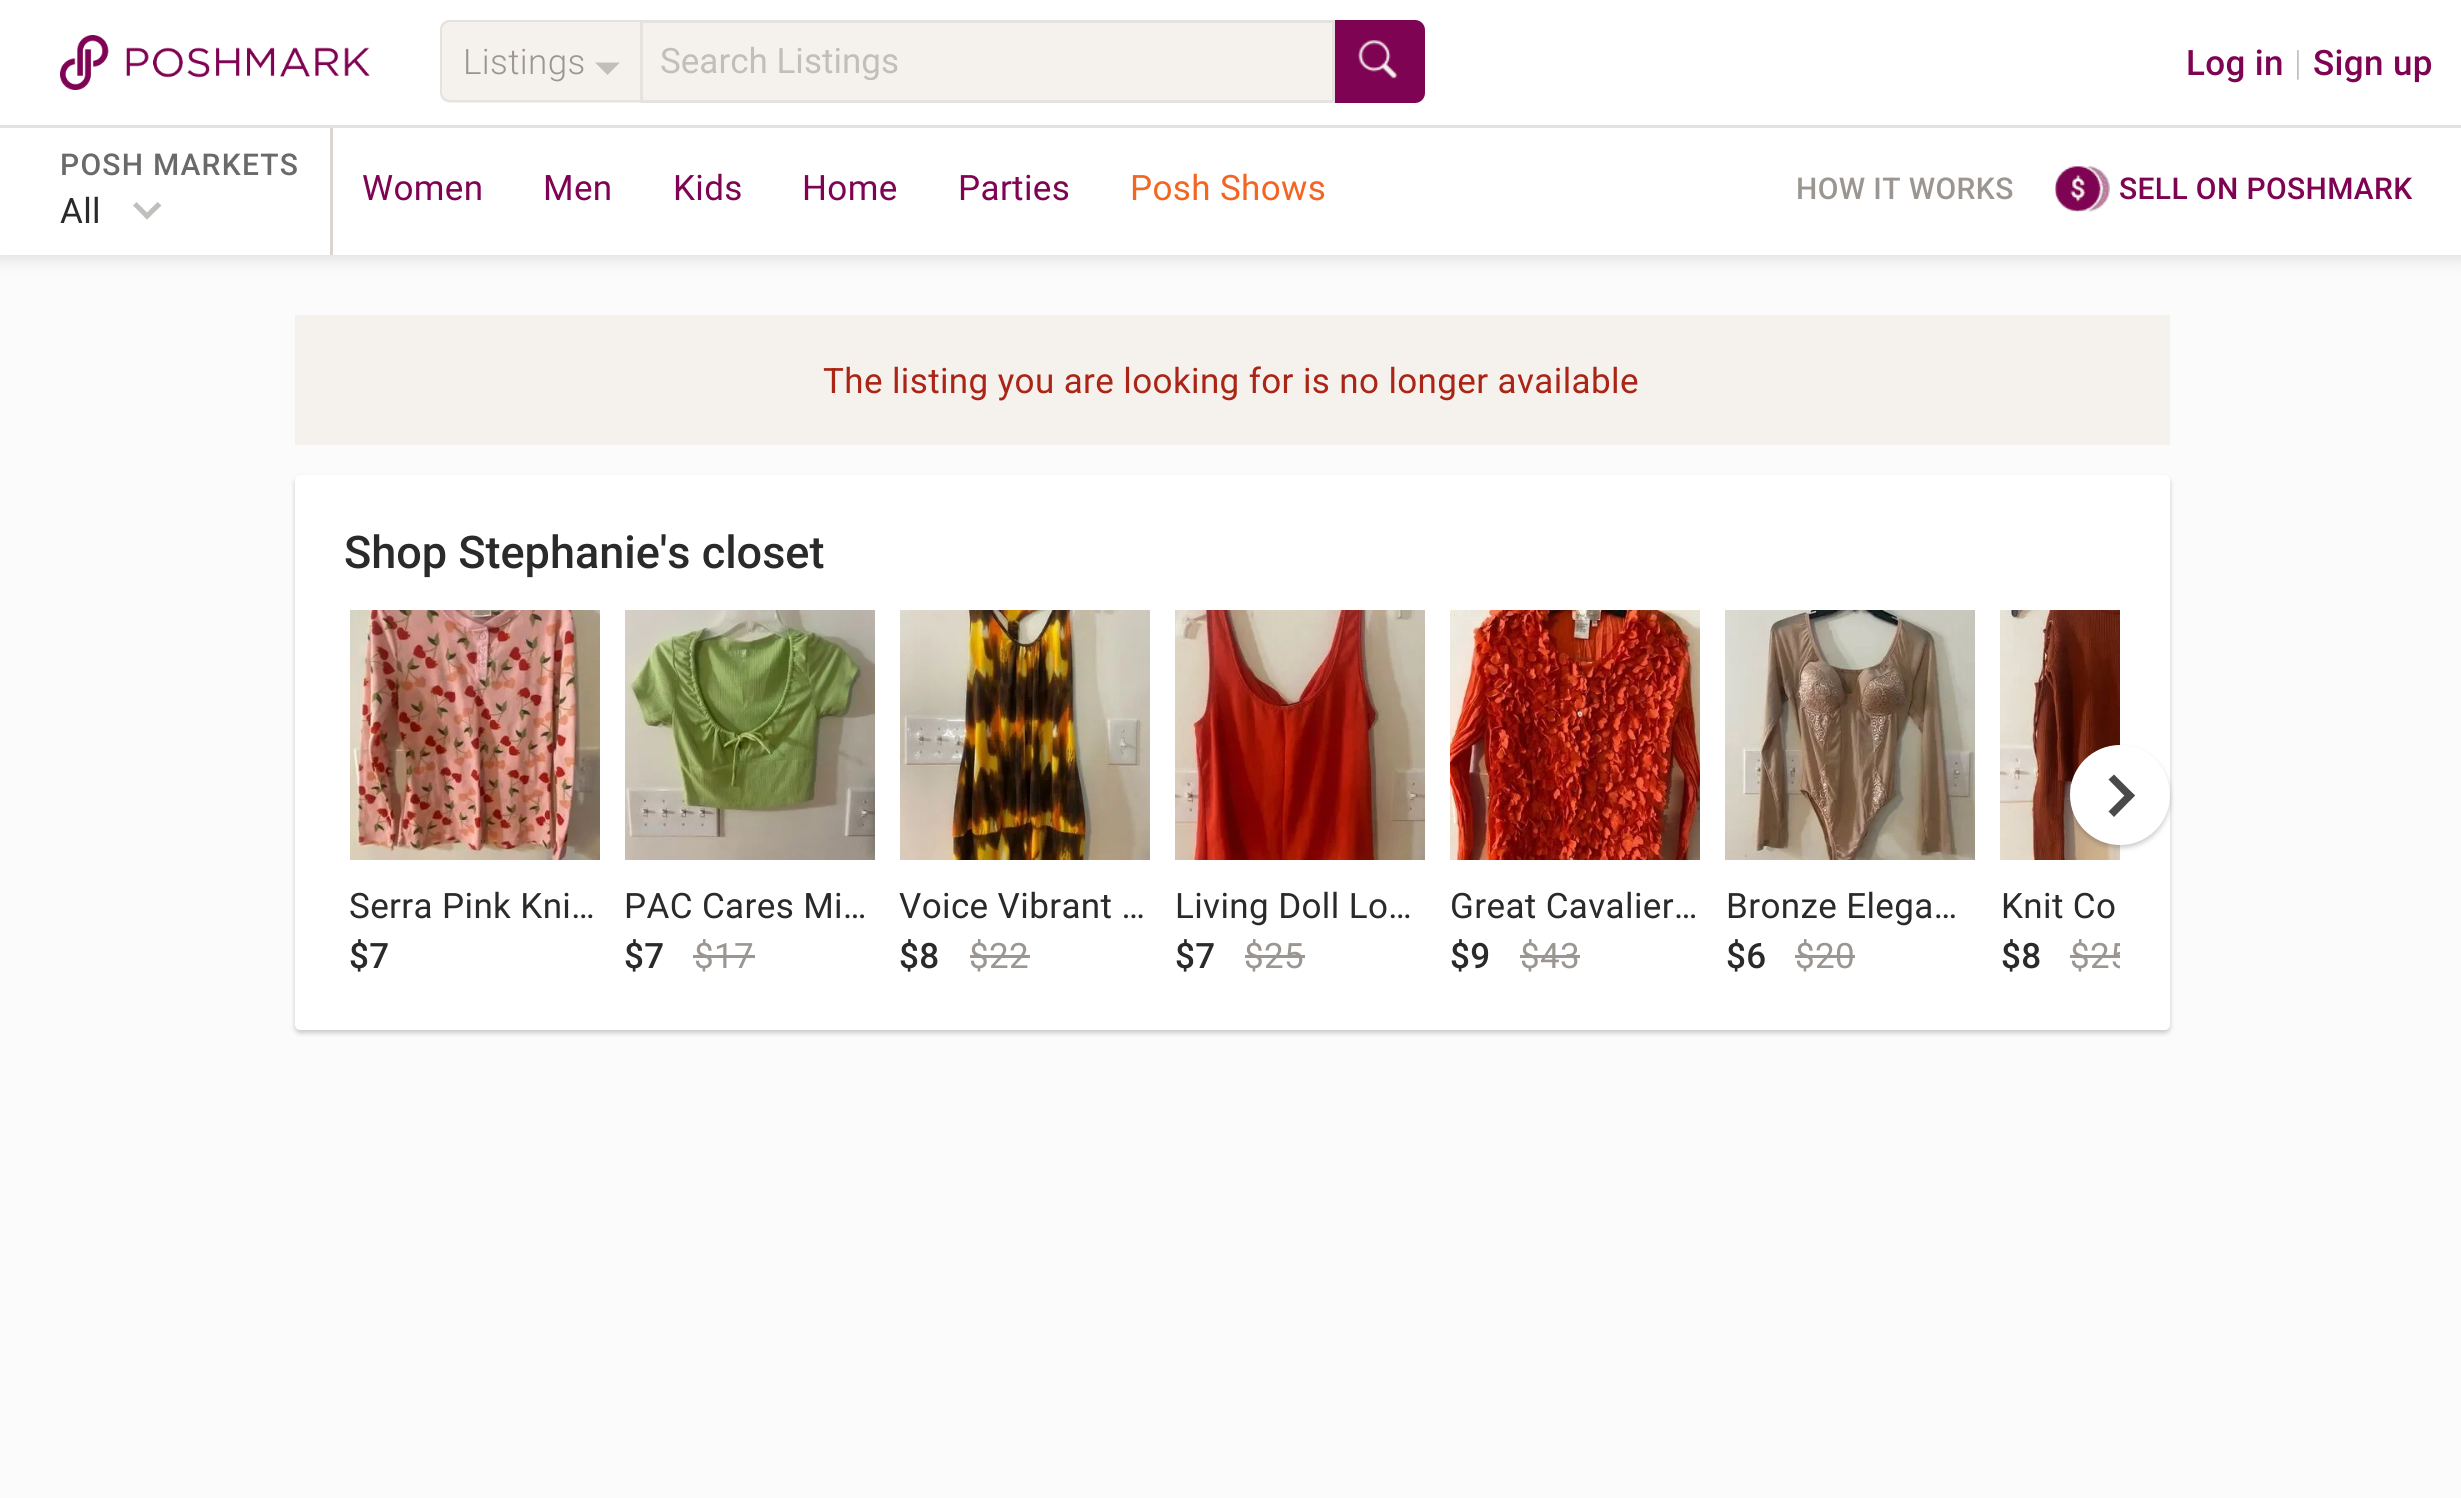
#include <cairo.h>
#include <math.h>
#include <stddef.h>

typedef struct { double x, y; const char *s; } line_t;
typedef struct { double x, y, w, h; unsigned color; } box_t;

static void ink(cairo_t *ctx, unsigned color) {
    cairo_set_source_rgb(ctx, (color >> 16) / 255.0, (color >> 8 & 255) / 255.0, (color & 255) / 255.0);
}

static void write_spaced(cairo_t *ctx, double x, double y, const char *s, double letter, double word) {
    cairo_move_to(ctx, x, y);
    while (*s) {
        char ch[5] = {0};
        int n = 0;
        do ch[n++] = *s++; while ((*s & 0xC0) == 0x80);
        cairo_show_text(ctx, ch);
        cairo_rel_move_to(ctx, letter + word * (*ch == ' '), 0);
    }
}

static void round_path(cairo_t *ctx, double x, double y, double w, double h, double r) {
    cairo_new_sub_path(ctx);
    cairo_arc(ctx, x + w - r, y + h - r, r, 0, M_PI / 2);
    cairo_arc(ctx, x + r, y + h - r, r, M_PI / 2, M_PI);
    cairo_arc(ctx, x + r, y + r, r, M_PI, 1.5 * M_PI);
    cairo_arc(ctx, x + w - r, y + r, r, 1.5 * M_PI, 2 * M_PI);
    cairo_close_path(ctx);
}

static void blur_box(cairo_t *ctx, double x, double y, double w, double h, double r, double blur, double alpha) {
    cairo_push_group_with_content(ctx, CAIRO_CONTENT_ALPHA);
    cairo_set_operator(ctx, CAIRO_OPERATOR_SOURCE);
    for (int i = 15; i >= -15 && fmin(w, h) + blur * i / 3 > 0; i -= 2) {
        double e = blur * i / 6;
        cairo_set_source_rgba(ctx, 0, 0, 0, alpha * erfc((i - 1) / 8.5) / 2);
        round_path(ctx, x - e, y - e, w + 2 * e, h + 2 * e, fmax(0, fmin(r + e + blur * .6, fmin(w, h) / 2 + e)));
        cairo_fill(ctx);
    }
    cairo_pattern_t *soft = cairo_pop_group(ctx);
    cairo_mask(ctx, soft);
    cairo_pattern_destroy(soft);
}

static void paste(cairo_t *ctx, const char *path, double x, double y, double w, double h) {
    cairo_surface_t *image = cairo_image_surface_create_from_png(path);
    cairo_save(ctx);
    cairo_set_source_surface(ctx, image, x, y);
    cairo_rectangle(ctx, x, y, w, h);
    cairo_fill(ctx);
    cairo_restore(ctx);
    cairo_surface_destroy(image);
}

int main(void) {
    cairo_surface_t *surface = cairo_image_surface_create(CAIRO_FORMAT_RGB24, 2461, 1498);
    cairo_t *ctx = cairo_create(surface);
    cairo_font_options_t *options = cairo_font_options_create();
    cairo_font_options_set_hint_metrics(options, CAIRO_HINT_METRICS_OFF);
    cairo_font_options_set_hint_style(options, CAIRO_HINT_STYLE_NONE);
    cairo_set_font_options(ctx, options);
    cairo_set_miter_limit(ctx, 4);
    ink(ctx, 0xFCFBFB);
    cairo_paint(ctx);
    ink(ctx, 0x000000);
    blur_box(ctx, -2, 125, 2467, 135, 0, 7.5, 0.1);
    {
        static const box_t items[] = {
            {0, 0, 2461, 125, 0xFFFFFF},
            {0, 128, 2461, 127, 0xFFFFFF},
            {330, 125, 3, 130, 0xD9D5D2},
            {0, 125, 2461, 3, 0xE6E2DF},
        };
        for (size_t i = 0; i < sizeof items / sizeof *items; i++) {
            ink(ctx, items[i].color);
            cairo_rectangle(ctx, items[i].x, items[i].y, items[i].w, items[i].h);
            cairo_fill(ctx);
        }
    }
    paste(ctx, "media/1.png", 60, 35, 310, 55);
    ink(ctx, 0xF5F2EE);
    cairo_new_path(ctx);
    cairo_move_to(ctx, 450, 20);
    cairo_line_to(ctx, 640, 20);
    cairo_line_to(ctx, 640, 103);
    cairo_line_to(ctx, 450, 103);
    cairo_curve_to(ctx, 444.5, 103, 440, 98.5, 440, 93);
    cairo_line_to(ctx, 440, 30);
    cairo_curve_to(ctx, 440, 24.5, 444.5, 20, 450, 20);
    cairo_close_path(ctx);
    cairo_fill(ctx);
    ink(ctx, 0xE6E2DF);
    cairo_set_fill_rule(ctx, CAIRO_FILL_RULE_EVEN_ODD);
    cairo_new_path(ctx);
    cairo_move_to(ctx, 450, 20);
    cairo_line_to(ctx, 640, 20);
    cairo_line_to(ctx, 640, 102);
    cairo_line_to(ctx, 450, 102);
    cairo_curve_to(ctx, 444, 102, 440, 98, 440, 92);
    cairo_line_to(ctx, 440, 30);
    cairo_curve_to(ctx, 440, 24, 444, 20, 450, 20);
    cairo_close_path(ctx);
    cairo_move_to(ctx, 450, 22);
    cairo_line_to(ctx, 640, 22);
    cairo_line_to(ctx, 640, 100);
    cairo_line_to(ctx, 450, 100);
    cairo_curve_to(ctx, 446, 100, 442, 97, 442, 92);
    cairo_line_to(ctx, 442, 30);
    cairo_curve_to(ctx, 442, 26, 446, 22, 450, 22);
    cairo_close_path(ctx);
    cairo_fill(ctx);
    cairo_select_font_face(ctx, "Roboto Light", CAIRO_FONT_SLANT_NORMAL, CAIRO_FONT_WEIGHT_NORMAL);
    cairo_set_font_size(ctx, 35);
    ink(ctx, 0x9B9691);
    write_spaced(ctx, 463, 74, "Listings", 0.38, 0);
    ink(ctx, 0xC1BFBC);
    cairo_set_fill_rule(ctx, CAIRO_FILL_RULE_WINDING);
    cairo_new_path(ctx);
    cairo_move_to(ctx, 595, 62.5);
    cairo_line_to(ctx, 620, 62.5);
    cairo_line_to(ctx, 607.5, 75);
    cairo_close_path(ctx);
    cairo_fill(ctx);
    ink(ctx, 0x7F0353);
    cairo_new_path(ctx);
    cairo_move_to(ctx, 1333, 20);
    cairo_line_to(ctx, 1415, 20);
    cairo_curve_to(ctx, 1420.5, 20, 1425, 24.5, 1425, 30);
    cairo_line_to(ctx, 1425, 93);
    cairo_curve_to(ctx, 1425, 98.5, 1420.5, 103, 1415, 103);
    cairo_line_to(ctx, 1333, 103);
    cairo_close_path(ctx);
    cairo_fill(ctx);
    ink(ctx, 0xF5F2EE);
    cairo_rectangle(ctx, 641.5, 21.5, 692, 80);
    cairo_fill_preserve(ctx);
    ink(ctx, 0xE6E2DF);
    cairo_set_line_width(ctx, 3);
    cairo_stroke(ctx);
    cairo_save(ctx);
    cairo_rectangle(ctx, 660, 40, 620, 40);
    cairo_clip(ctx);
    cairo_select_font_face(ctx, "Roboto", CAIRO_FONT_SLANT_NORMAL, CAIRO_FONT_WEIGHT_NORMAL);
    ink(ctx, 0xC1BFBC);
    cairo_move_to(ctx, 660, 73);
    cairo_show_text(ctx, "Search Listings");
    cairo_restore(ctx);
    paste(ctx, "media/2.png", 1358, 40, 40, 39);
    cairo_select_font_face(ctx, "Roboto Medium", CAIRO_FONT_SLANT_NORMAL, CAIRO_FONT_WEIGHT_NORMAL);
    ink(ctx, 0x7F0353);
    write_spaced(ctx, 2186, 75, "Log in", 0.38, 0);
    cairo_select_font_face(ctx, "Roboto Light", CAIRO_FONT_SLANT_NORMAL, CAIRO_FONT_WEIGHT_NORMAL);
    ink(ctx, 0xC1BFBC);
    write_spaced(ctx, 2294, 75, "|", 0.38, 0);
    cairo_select_font_face(ctx, "Roboto Medium", CAIRO_FONT_SLANT_NORMAL, CAIRO_FONT_WEIGHT_NORMAL);
    ink(ctx, 0x7F0353);
    write_spaced(ctx, 2313, 75, "Sign up", 0.38, 0);
    cairo_set_font_size(ctx, 30);
    ink(ctx, 0x6A6A6A);
    write_spaced(ctx, 60, 175, "POSH MARKETS", 1.25, 0);
    cairo_select_font_face(ctx, "Roboto", CAIRO_FONT_SLANT_NORMAL, CAIRO_FONT_WEIGHT_NORMAL);
    cairo_set_font_size(ctx, 35);
    ink(ctx, 0x2A2A2A);
    write_spaced(ctx, 60, 223, "All", 0.38, 0);
    ink(ctx, 0xC1BFBC);
    cairo_new_path(ctx);
    cairo_move_to(ctx, 157.5, 202);
    cairo_line_to(ctx, 161.5, 205.5);
    cairo_line_to(ctx, 147, 219.5);
    cairo_line_to(ctx, 143.5, 216);
    cairo_close_path(ctx);
    cairo_fill(ctx);
    cairo_new_path(ctx);
    cairo_move_to(ctx, 136.5, 202);
    cairo_line_to(ctx, 150.5, 216);
    cairo_line_to(ctx, 147, 219.5);
    cairo_line_to(ctx, 133, 205.5);
    cairo_close_path(ctx);
    cairo_fill(ctx);
    ink(ctx, 0x7F0353);
    {
        static const line_t items[] = {
            {362, 200, "Women"},
            {543, 200, "Men"},
            {673, 200, "Kids"},
            {802, 200, "Home"},
            {958, 200, "Parties"},
        };
        for (size_t i = 0; i < sizeof items / sizeof *items; i++) {
            write_spaced(ctx, items[i].x, items[i].y, items[i].s, 0.38, 0);
        }
    }
    ink(ctx, 0xF36522);
    write_spaced(ctx, 1130, 200, "Posh Shows", 0.38, 0);
    cairo_select_font_face(ctx, "Roboto Medium", CAIRO_FONT_SLANT_NORMAL, CAIRO_FONT_WEIGHT_NORMAL);
    cairo_set_font_size(ctx, 30);
    ink(ctx, 0x9B9691);
    write_spaced(ctx, 1796, 199, "HOW IT WORKS", 0.38, 0);
    paste(ctx, "media/3.png", 2055, 166, 55, 47);
    ink(ctx, 0x7F0353);
    write_spaced(ctx, 2119, 199, "SELL ON POSHMARK", 0.38, 0);
    ink(ctx, 0xF5F2EE);
    cairo_rectangle(ctx, 295, 315, 1875, 130);
    cairo_fill(ctx);
    cairo_select_font_face(ctx, "Roboto", CAIRO_FONT_SLANT_NORMAL, CAIRO_FONT_WEIGHT_NORMAL);
    cairo_set_font_size(ctx, 35);
    ink(ctx, 0xAA2516);
    write_spaced(ctx, 823, 393, "The listing you are looking for is no longer available", 0.38, 0);
    ink(ctx, 0x000000);
    blur_box(ctx, 295, 478, 1875, 555, 5, 2.5, 0.2);
    ink(ctx, 0xFFFFFF);
    round_path(ctx, 295, 475, 1875, 555, 5);
    cairo_fill(ctx);
    cairo_select_font_face(ctx, "Roboto Medium", CAIRO_FONT_SLANT_NORMAL, CAIRO_FONT_WEIGHT_NORMAL);
    cairo_set_font_size(ctx, 45);
    ink(ctx, 0x2A2A2A);
    cairo_move_to(ctx, 344, 568);
    cairo_show_text(ctx, "Shop Stephanie's closet");
    paste(ctx, "media/10.png", 2000, 610, 120, 250);
    ink(ctx, 0x000000);
    blur_box(ctx, 2070, 748, 100, 100, 50, 2.5, 0.2);
    ink(ctx, 0xFFFFFF);
    cairo_arc(ctx, 2120, 795, 50, 0, 2 * M_PI);
    cairo_fill(ctx);
    ink(ctx, 0x4A4A4A);
    cairo_new_path(ctx);
    cairo_move_to(ctx, 2108.5, 779.5);
    cairo_line_to(ctx, 2114, 774.5);
    cairo_line_to(ctx, 2135, 795.5);
    cairo_line_to(ctx, 2129.5, 801);
    cairo_close_path(ctx);
    cairo_fill(ctx);
    cairo_new_path(ctx);
    cairo_move_to(ctx, 2108.5, 811.5);
    cairo_line_to(ctx, 2129.5, 790.5);
    cairo_line_to(ctx, 2135, 795.5);
    cairo_line_to(ctx, 2114, 817);
    cairo_close_path(ctx);
    cairo_fill(ctx);
    paste(ctx, "media/4.png", 350, 610, 250, 250);
    cairo_select_font_face(ctx, "Roboto", CAIRO_FONT_SLANT_NORMAL, CAIRO_FONT_WEIGHT_NORMAL);
    cairo_set_font_size(ctx, 35);
    ink(ctx, 0x2A2A2A);
    write_spaced(ctx, 349, 918, "Serra Pink Kni…", 0.38, 0);
    cairo_select_font_face(ctx, "Roboto Medium", CAIRO_FONT_SLANT_NORMAL, CAIRO_FONT_WEIGHT_NORMAL);
    write_spaced(ctx, 349, 968, "$7", 0.38, 0);
    paste(ctx, "media/5.png", 625, 610, 250, 250);
    cairo_select_font_face(ctx, "Roboto", CAIRO_FONT_SLANT_NORMAL, CAIRO_FONT_WEIGHT_NORMAL);
    write_spaced(ctx, 624, 918, "PAC Cares Mi…", 0.38, 0);
    cairo_select_font_face(ctx, "Roboto Medium", CAIRO_FONT_SLANT_NORMAL, CAIRO_FONT_WEIGHT_NORMAL);
    write_spaced(ctx, 624, 968, "$7", 0.38, 0);
    cairo_select_font_face(ctx, "Roboto", CAIRO_FONT_SLANT_NORMAL, CAIRO_FONT_WEIGHT_NORMAL);
    ink(ctx, 0x9B9691);
    write_spaced(ctx, 694, 968, "$17", 0.38, 0);
    cairo_rectangle(ctx, 693, 955, 62, 3);
    cairo_fill(ctx);
    paste(ctx, "media/6.png", 900, 610, 250, 250);
    ink(ctx, 0x2A2A2A);
    write_spaced(ctx, 899, 918, "Voice Vibrant …", 0.38, 0);
    cairo_select_font_face(ctx, "Roboto Medium", CAIRO_FONT_SLANT_NORMAL, CAIRO_FONT_WEIGHT_NORMAL);
    write_spaced(ctx, 899, 968, "$8", 0.38, 0);
    cairo_select_font_face(ctx, "Roboto", CAIRO_FONT_SLANT_NORMAL, CAIRO_FONT_WEIGHT_NORMAL);
    ink(ctx, 0x9B9691);
    write_spaced(ctx, 969, 968, "$22", 0.38, 0);
    cairo_rectangle(ctx, 970, 955, 60, 3);
    cairo_fill(ctx);
    paste(ctx, "media/7.png", 1175, 610, 250, 250);
    ink(ctx, 0x2A2A2A);
    write_spaced(ctx, 1175, 918, "Living Doll Lo…", 0.38, 0);
    cairo_select_font_face(ctx, "Roboto Medium", CAIRO_FONT_SLANT_NORMAL, CAIRO_FONT_WEIGHT_NORMAL);
    write_spaced(ctx, 1175, 968, "$7", 0.38, 0);
    cairo_select_font_face(ctx, "Roboto", CAIRO_FONT_SLANT_NORMAL, CAIRO_FONT_WEIGHT_NORMAL);
    ink(ctx, 0x9B9691);
    write_spaced(ctx, 1244, 968, "$25", 0.38, 0);
    cairo_rectangle(ctx, 1245, 955, 60, 3);
    cairo_fill(ctx);
    paste(ctx, "media/8.png", 1450, 610, 250, 250);
    ink(ctx, 0x2A2A2A);
    write_spaced(ctx, 1450, 918, "Great Cavalier…", 0.38, 0);
    cairo_select_font_face(ctx, "Roboto Medium", CAIRO_FONT_SLANT_NORMAL, CAIRO_FONT_WEIGHT_NORMAL);
    write_spaced(ctx, 1450, 968, "$9", 0.38, 0);
    cairo_select_font_face(ctx, "Roboto", CAIRO_FONT_SLANT_NORMAL, CAIRO_FONT_WEIGHT_NORMAL);
    ink(ctx, 0x9B9691);
    write_spaced(ctx, 1520, 968, "$43", 0.38, 0);
    cairo_rectangle(ctx, 1520, 955, 60, 3);
    cairo_fill(ctx);
    paste(ctx, "media/9.png", 1725, 610, 250, 250);
    ink(ctx, 0x2A2A2A);
    write_spaced(ctx, 1726, 918, "Bronze Elega…", 0.38, 0);
    cairo_select_font_face(ctx, "Roboto Medium", CAIRO_FONT_SLANT_NORMAL, CAIRO_FONT_WEIGHT_NORMAL);
    write_spaced(ctx, 1726, 968, "$6", 0.38, 0);
    cairo_select_font_face(ctx, "Roboto", CAIRO_FONT_SLANT_NORMAL, CAIRO_FONT_WEIGHT_NORMAL);
    ink(ctx, 0x9B9691);
    write_spaced(ctx, 1795, 968, "$20", 0.38, 0);
    cairo_rectangle(ctx, 1795, 955, 60, 3);
    cairo_fill(ctx);
    ink(ctx, 0x2A2A2A);
    write_spaced(ctx, 2001, 918, "Knit Co", 0.38, 0);
    cairo_select_font_face(ctx, "Roboto Medium", CAIRO_FONT_SLANT_NORMAL, CAIRO_FONT_WEIGHT_NORMAL);
    write_spaced(ctx, 2001, 968, "$8", 0.38, 0);
    cairo_save(ctx);
    cairo_rectangle(ctx, 345, 610, 1775, 370);
    cairo_clip(ctx);
    cairo_select_font_face(ctx, "Roboto", CAIRO_FONT_SLANT_NORMAL, CAIRO_FONT_WEIGHT_NORMAL);
    ink(ctx, 0x9B9691);
    write_spaced(ctx, 2070, 968, "$25", 0.38, 0);
    cairo_restore(ctx);
    ink(ctx, 0x9B9691);
    cairo_rectangle(ctx, 2070, 955, 50, 3);
    cairo_fill(ctx);
    cairo_surface_write_to_png(surface, "image.png");
    cairo_font_options_destroy(options);
    cairo_destroy(ctx);
    cairo_surface_destroy(surface);
    return 0;
}
